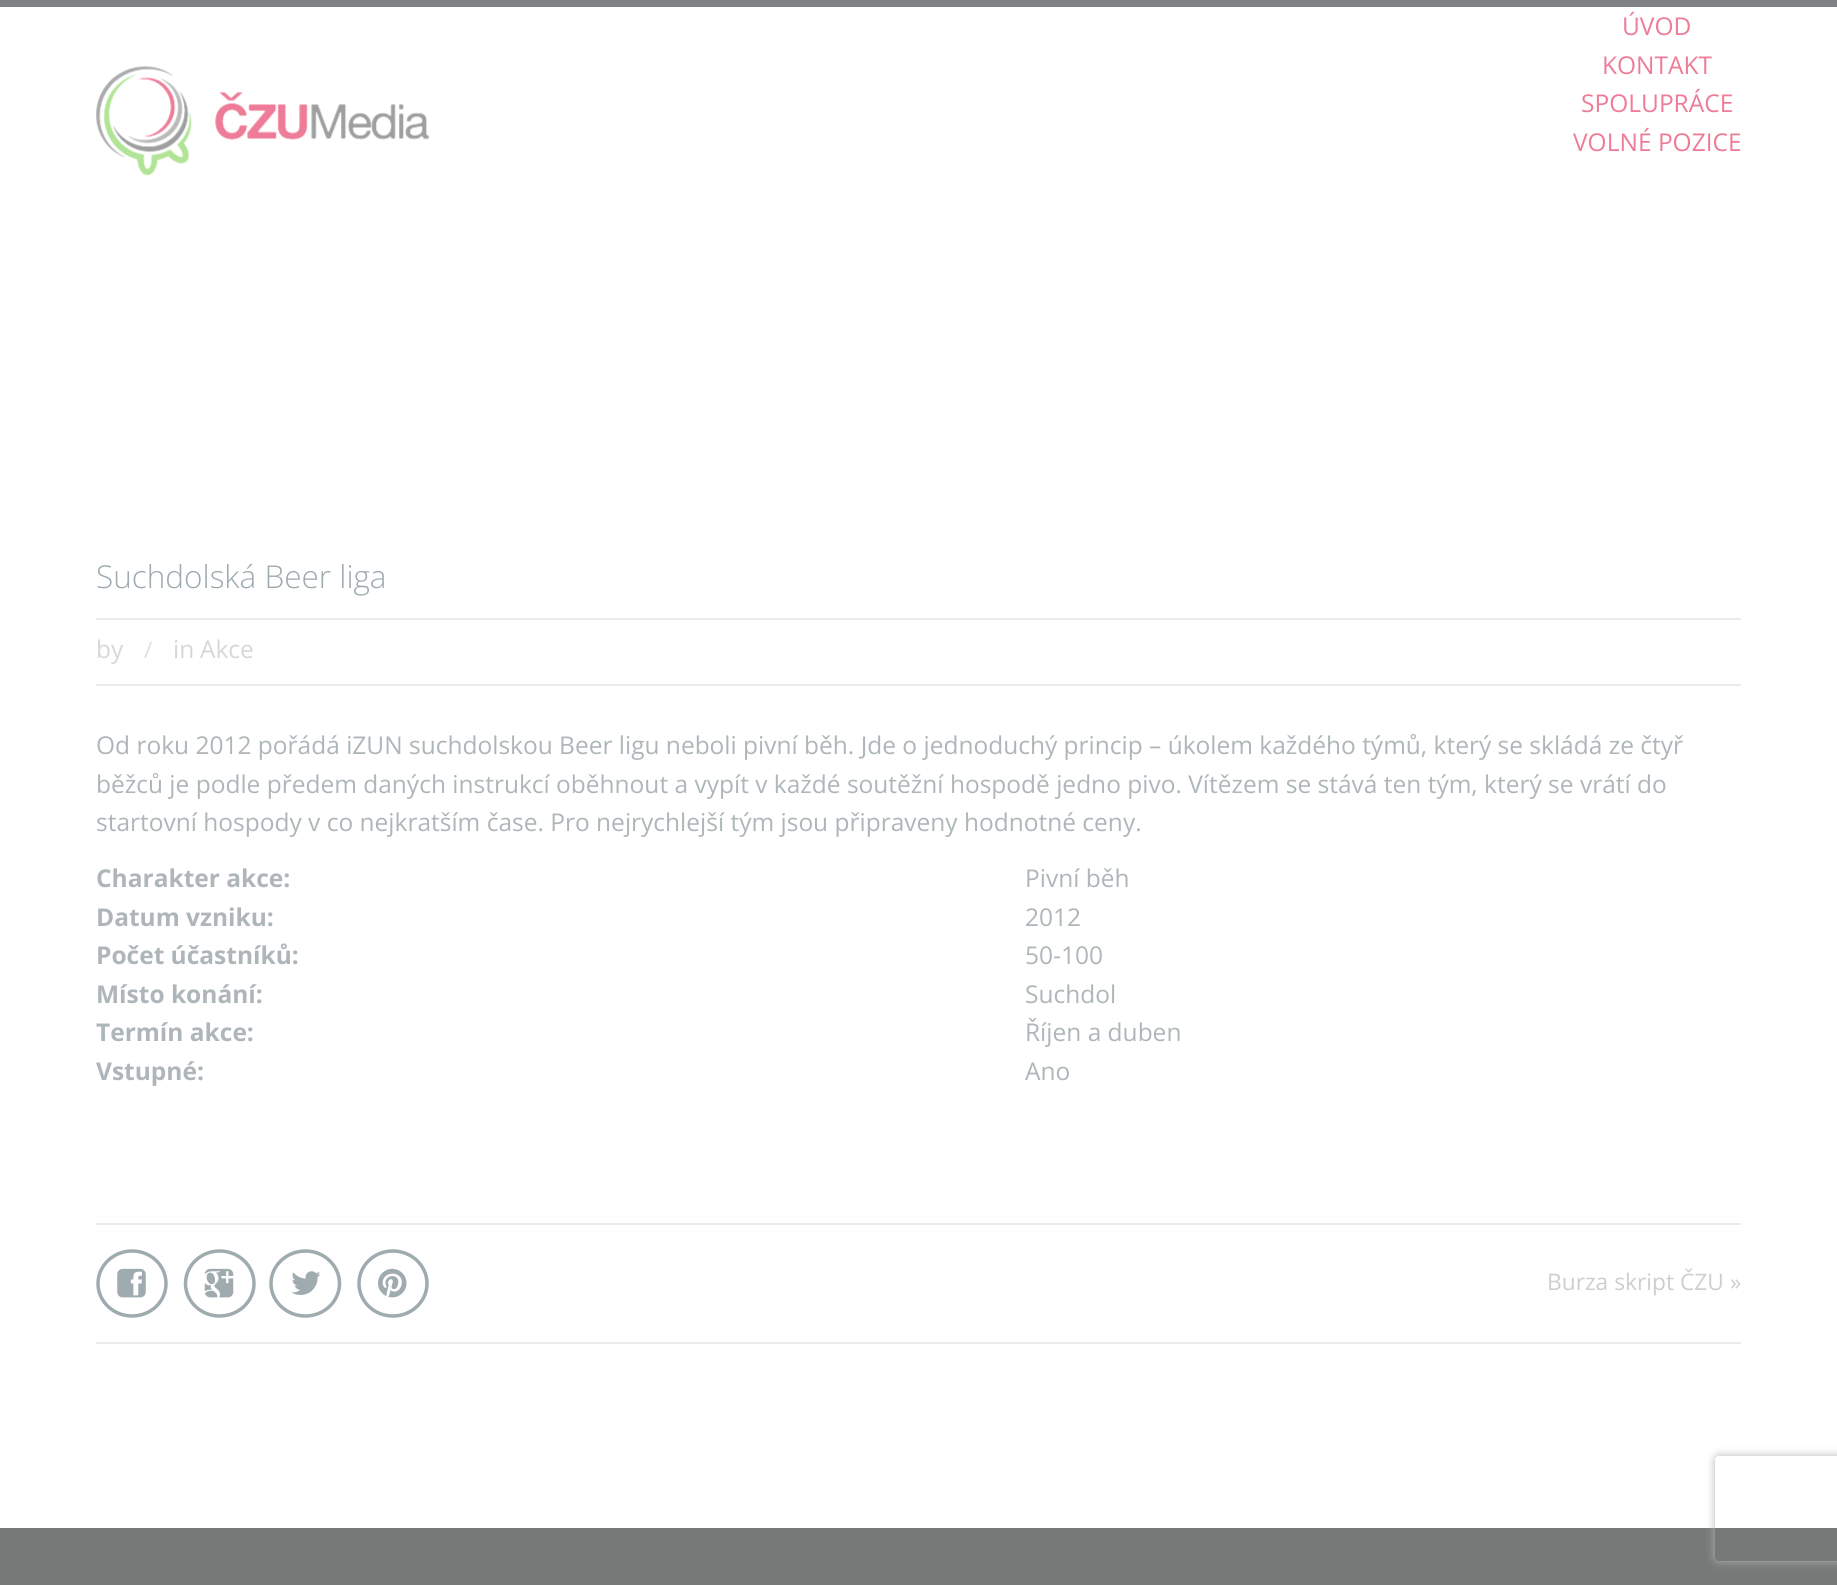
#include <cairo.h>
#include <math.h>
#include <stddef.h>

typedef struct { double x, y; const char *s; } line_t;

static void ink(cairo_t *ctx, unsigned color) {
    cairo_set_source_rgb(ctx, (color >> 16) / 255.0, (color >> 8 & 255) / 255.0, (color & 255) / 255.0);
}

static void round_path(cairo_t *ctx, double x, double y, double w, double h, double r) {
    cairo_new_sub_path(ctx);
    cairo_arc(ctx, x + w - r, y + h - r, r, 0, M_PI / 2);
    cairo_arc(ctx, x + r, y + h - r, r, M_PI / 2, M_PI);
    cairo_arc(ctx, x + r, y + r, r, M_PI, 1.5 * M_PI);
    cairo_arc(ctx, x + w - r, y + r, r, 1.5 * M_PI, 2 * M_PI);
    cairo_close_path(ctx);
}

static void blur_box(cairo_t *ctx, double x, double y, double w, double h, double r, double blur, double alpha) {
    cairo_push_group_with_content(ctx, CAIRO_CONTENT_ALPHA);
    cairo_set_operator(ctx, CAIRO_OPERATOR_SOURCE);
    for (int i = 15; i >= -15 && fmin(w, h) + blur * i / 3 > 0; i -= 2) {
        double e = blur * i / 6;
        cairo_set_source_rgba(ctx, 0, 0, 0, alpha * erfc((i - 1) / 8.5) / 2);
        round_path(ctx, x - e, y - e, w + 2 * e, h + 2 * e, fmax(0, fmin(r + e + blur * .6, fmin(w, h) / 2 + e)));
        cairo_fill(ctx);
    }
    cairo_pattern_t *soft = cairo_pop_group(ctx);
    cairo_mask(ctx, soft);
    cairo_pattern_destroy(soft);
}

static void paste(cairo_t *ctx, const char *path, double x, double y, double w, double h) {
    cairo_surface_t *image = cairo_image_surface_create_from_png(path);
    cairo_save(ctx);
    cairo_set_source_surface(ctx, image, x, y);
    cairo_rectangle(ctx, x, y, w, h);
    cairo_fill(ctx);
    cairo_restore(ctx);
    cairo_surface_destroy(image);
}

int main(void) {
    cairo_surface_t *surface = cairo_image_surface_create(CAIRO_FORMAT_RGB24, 1837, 1585);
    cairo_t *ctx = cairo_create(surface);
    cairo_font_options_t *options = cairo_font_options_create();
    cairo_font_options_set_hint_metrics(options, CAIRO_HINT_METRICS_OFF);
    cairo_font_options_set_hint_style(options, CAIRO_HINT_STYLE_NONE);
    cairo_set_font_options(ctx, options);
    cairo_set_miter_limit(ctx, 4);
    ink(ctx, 0xFFFFFF);
    cairo_paint(ctx);
    ink(ctx, 0x808182);
    cairo_rectangle(ctx, 0, 0, 1837, 7);
    cairo_fill(ctx);
    paste(ctx, "media/1.png", 96, 66, 334, 110);
    cairo_select_font_face(ctx, "Open Sans", CAIRO_FONT_SLANT_NORMAL, CAIRO_FONT_WEIGHT_NORMAL);
    cairo_set_font_size(ctx, 24.5);
    ink(ctx, 0xEE7C96);
    {
        static const line_t items[] = {
            {1622, 35, "ÚVOD"},
            {1602, 74, "KONTAKT"},
            {1581, 112, "SPOLUPRÁCE"},
            {1573, 151, "VOLNÉ POZICE"},
        };
        for (size_t i = 0; i < sizeof items / sizeof *items; i++) {
            cairo_move_to(ctx, items[i].x, items[i].y);
            cairo_show_text(ctx, items[i].s);
        }
    }
    ink(ctx, 0xEBEBEB);
    cairo_rectangle(ctx, 96, 684, 1645, 2);
    cairo_fill(ctx);
    cairo_select_font_face(ctx, "Open Sans Light", CAIRO_FONT_SLANT_NORMAL, CAIRO_FONT_WEIGHT_NORMAL);
    cairo_set_font_size(ctx, 31.5);
    ink(ctx, 0x9EAAAF);
    cairo_move_to(ctx, 96, 588);
    cairo_show_text(ctx, "Suchdolská Beer liga");
    ink(ctx, 0xEBEBEB);
    cairo_rectangle(ctx, 96, 618, 1645, 2);
    cairo_fill(ctx);
    cairo_select_font_face(ctx, "Open Sans", CAIRO_FONT_SLANT_NORMAL, CAIRO_FONT_WEIGHT_NORMAL);
    cairo_set_font_size(ctx, 24.5);
    ink(ctx, 0xD7D7D7);
    cairo_move_to(ctx, 96, 658);
    cairo_show_text(ctx, "by");
    cairo_set_font_size(ctx, 22.75);
    ink(ctx, 0xE0E0E0);
    cairo_move_to(ctx, 144, 658);
    cairo_show_text(ctx, "/");
    cairo_set_font_size(ctx, 24.5);
    ink(ctx, 0xD7D7D7);
    cairo_move_to(ctx, 173, 658);
    cairo_show_text(ctx, "in");
    cairo_move_to(ctx, 200, 658);
    cairo_show_text(ctx, "Akce");
    ink(ctx, 0xAEB6B9);
    {
        static const line_t items[] = {
            {96, 754, "Od roku 2012 pořádá iZUN suchdolskou Beer ligu neboli pivní běh. Jde o jednoduchý princip – úkolem každého týmů, který se skládá ze čtyř"},
            {96, 793, "běžců je podle předem daných instrukcí oběhnout a vypít v každé soutěžní hospodě jedno pivo. Vítězem se stává ten tým, který se vrátí do"},
            {96, 831, "startovní hospody v co nejkratším čase. Pro nejrychlejší tým jsou připraveny hodnotné ceny."},
        };
        for (size_t i = 0; i < sizeof items / sizeof *items; i++) {
            cairo_move_to(ctx, items[i].x, items[i].y);
            cairo_show_text(ctx, items[i].s);
        }
    }
    cairo_select_font_face(ctx, "Open Sans", CAIRO_FONT_SLANT_NORMAL, CAIRO_FONT_WEIGHT_BOLD);
    cairo_move_to(ctx, 96, 887);
    cairo_show_text(ctx, "Charakter akce:");
    cairo_select_font_face(ctx, "Open Sans", CAIRO_FONT_SLANT_NORMAL, CAIRO_FONT_WEIGHT_NORMAL);
    cairo_move_to(ctx, 1025, 887);
    cairo_show_text(ctx, "Pivní běh");
    cairo_select_font_face(ctx, "Open Sans", CAIRO_FONT_SLANT_NORMAL, CAIRO_FONT_WEIGHT_BOLD);
    cairo_move_to(ctx, 96, 926);
    cairo_show_text(ctx, "Datum vzniku:");
    cairo_select_font_face(ctx, "Open Sans", CAIRO_FONT_SLANT_NORMAL, CAIRO_FONT_WEIGHT_NORMAL);
    cairo_move_to(ctx, 1025, 926);
    cairo_show_text(ctx, "2012");
    cairo_select_font_face(ctx, "Open Sans", CAIRO_FONT_SLANT_NORMAL, CAIRO_FONT_WEIGHT_BOLD);
    cairo_move_to(ctx, 96, 964);
    cairo_show_text(ctx, "Počet účastníků:");
    cairo_select_font_face(ctx, "Open Sans", CAIRO_FONT_SLANT_NORMAL, CAIRO_FONT_WEIGHT_NORMAL);
    cairo_move_to(ctx, 1025, 964);
    cairo_show_text(ctx, "50-100");
    cairo_select_font_face(ctx, "Open Sans", CAIRO_FONT_SLANT_NORMAL, CAIRO_FONT_WEIGHT_BOLD);
    cairo_move_to(ctx, 96, 1003);
    cairo_show_text(ctx, "Místo konání:");
    cairo_select_font_face(ctx, "Open Sans", CAIRO_FONT_SLANT_NORMAL, CAIRO_FONT_WEIGHT_NORMAL);
    cairo_move_to(ctx, 1025, 1003);
    cairo_show_text(ctx, "Suchdol");
    cairo_select_font_face(ctx, "Open Sans", CAIRO_FONT_SLANT_NORMAL, CAIRO_FONT_WEIGHT_BOLD);
    cairo_move_to(ctx, 96, 1041);
    cairo_show_text(ctx, "Termín akce:");
    cairo_select_font_face(ctx, "Open Sans", CAIRO_FONT_SLANT_NORMAL, CAIRO_FONT_WEIGHT_NORMAL);
    cairo_move_to(ctx, 1025, 1041);
    cairo_show_text(ctx, "Říjen a duben");
    cairo_select_font_face(ctx, "Open Sans", CAIRO_FONT_SLANT_NORMAL, CAIRO_FONT_WEIGHT_BOLD);
    cairo_move_to(ctx, 96, 1080);
    cairo_show_text(ctx, "Vstupné:");
    cairo_select_font_face(ctx, "Open Sans", CAIRO_FONT_SLANT_NORMAL, CAIRO_FONT_WEIGHT_NORMAL);
    cairo_move_to(ctx, 1025, 1080);
    cairo_show_text(ctx, "Ano");
    ink(ctx, 0xEBEBEB);
    cairo_rectangle(ctx, 96, 1223, 1645, 2);
    cairo_fill(ctx);
    cairo_rectangle(ctx, 96, 1342, 1645, 2);
    cairo_fill(ctx);
    cairo_new_path(ctx);
    cairo_move_to(ctx, 132, 1251);
    cairo_curve_to(ctx, 151, 1251, 166, 1265.5, 166, 1283.5);
    cairo_curve_to(ctx, 166, 1301.5, 151, 1316, 132, 1316);
    cairo_curve_to(ctx, 113.5, 1316, 98, 1301.5, 98, 1283.5);
    cairo_curve_to(ctx, 98, 1265.5, 113.5, 1251, 132, 1251);
    cairo_close_path(ctx);
    ink(ctx, 0x9FABAF);
    cairo_set_line_width(ctx, 3.5);
    cairo_stroke(ctx);
    paste(ctx, "media/2.png", 117, 1268, 29, 30);
    cairo_new_path(ctx);
    cairo_move_to(ctx, 219.5, 1251);
    cairo_curve_to(ctx, 238.5, 1251, 254, 1265.5, 254, 1283.5);
    cairo_curve_to(ctx, 254, 1301.5, 238.5, 1316, 219.5, 1316);
    cairo_curve_to(ctx, 201, 1316, 185.5, 1301.5, 185.5, 1283.5);
    cairo_curve_to(ctx, 185.5, 1265.5, 201, 1251, 219.5, 1251);
    cairo_close_path(ctx);
    cairo_stroke(ctx);
    paste(ctx, "media/3.png", 204, 1268, 30, 30);
    cairo_new_path(ctx);
    cairo_move_to(ctx, 305.5, 1251);
    cairo_curve_to(ctx, 324, 1251, 339.5, 1265.5, 339.5, 1283.5);
    cairo_curve_to(ctx, 339.5, 1301.5, 324, 1316, 305.5, 1316);
    cairo_curve_to(ctx, 286.5, 1316, 271, 1301.5, 271, 1283.5);
    cairo_curve_to(ctx, 271, 1265.5, 286.5, 1251, 305.5, 1251);
    cairo_close_path(ctx);
    cairo_stroke(ctx);
    paste(ctx, "media/4.png", 291, 1271, 30, 24);
    cairo_new_path(ctx);
    cairo_move_to(ctx, 393, 1251);
    cairo_curve_to(ctx, 411.5, 1251, 427, 1265.5, 427, 1283.5);
    cairo_curve_to(ctx, 427, 1301.5, 411.5, 1316, 393, 1316);
    cairo_curve_to(ctx, 374, 1316, 359, 1301.5, 359, 1283.5);
    cairo_curve_to(ctx, 359, 1265.5, 374, 1251, 393, 1251);
    cairo_close_path(ctx);
    cairo_stroke(ctx);
    paste(ctx, "media/5.png", 378, 1268, 29, 30);
    cairo_set_font_size(ctx, 22.75);
    ink(ctx, 0xCECECE);
    cairo_move_to(ctx, 1547, 1290);
    cairo_show_text(ctx, "Burza skript ČZU");
    cairo_move_to(ctx, 1730, 1290);
    cairo_show_text(ctx, "»");
    ink(ctx, 0x777878);
    cairo_rectangle(ctx, 0, 1528, 1837, 57);
    cairo_fill(ctx);
    cairo_save(ctx);
    cairo_set_fill_rule(ctx, CAIRO_FILL_RULE_EVEN_ODD);
    cairo_new_path(ctx);
    cairo_move_to(ctx, 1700, 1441);
    cairo_line_to(ctx, 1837, 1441);
    cairo_line_to(ctx, 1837, 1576);
    cairo_line_to(ctx, 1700, 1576);
    cairo_close_path(ctx);
    cairo_move_to(ctx, 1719, 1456);
    cairo_line_to(ctx, 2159, 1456);
    cairo_curve_to(ctx, 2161, 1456, 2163, 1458, 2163, 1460);
    cairo_line_to(ctx, 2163, 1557);
    cairo_curve_to(ctx, 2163, 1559, 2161, 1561, 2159, 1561);
    cairo_line_to(ctx, 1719, 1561);
    cairo_curve_to(ctx, 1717, 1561, 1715, 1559, 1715, 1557);
    cairo_line_to(ctx, 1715, 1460);
    cairo_curve_to(ctx, 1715, 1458, 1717, 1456, 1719, 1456);
    cairo_close_path(ctx);
    cairo_clip(ctx);
    ink(ctx, 0xB5B5B5);
    blur_box(ctx, 1715, 1456, 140, 105, 4, 4.5, 1);
    cairo_restore(ctx);
    cairo_surface_write_to_png(surface, "image.png");
    cairo_font_options_destroy(options);
    cairo_destroy(ctx);
    cairo_surface_destroy(surface);
    return 0;
}
